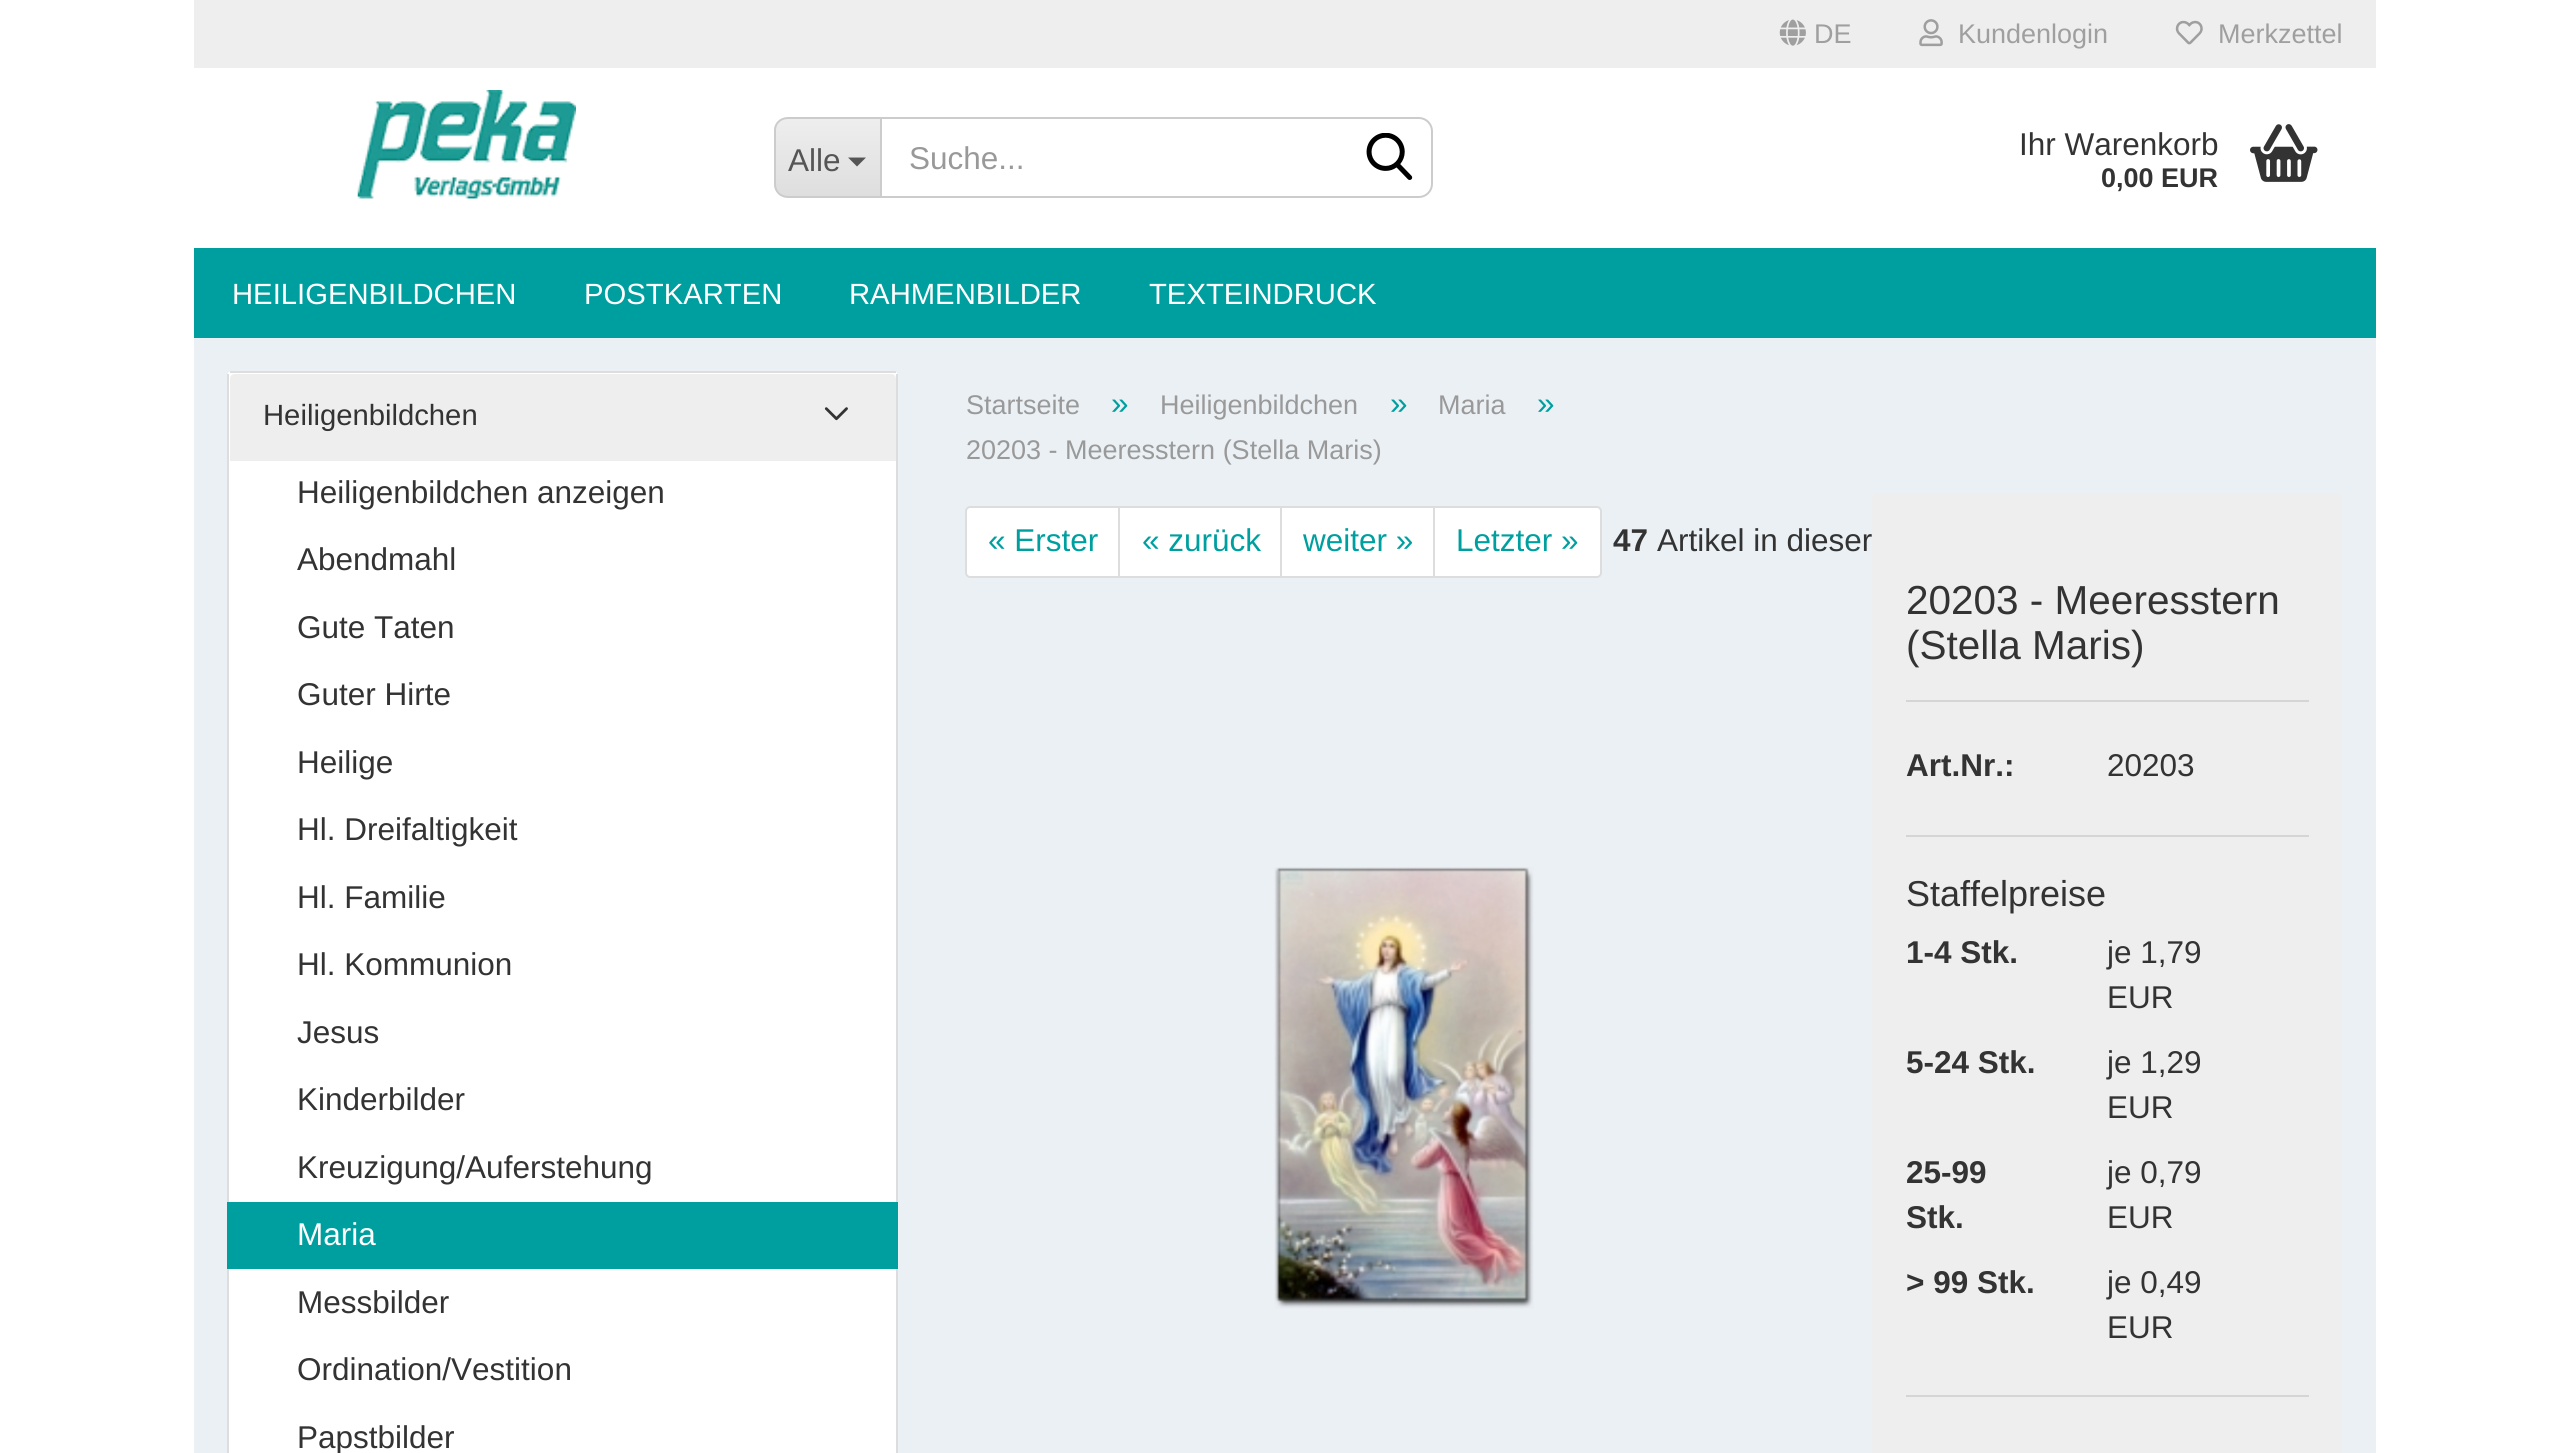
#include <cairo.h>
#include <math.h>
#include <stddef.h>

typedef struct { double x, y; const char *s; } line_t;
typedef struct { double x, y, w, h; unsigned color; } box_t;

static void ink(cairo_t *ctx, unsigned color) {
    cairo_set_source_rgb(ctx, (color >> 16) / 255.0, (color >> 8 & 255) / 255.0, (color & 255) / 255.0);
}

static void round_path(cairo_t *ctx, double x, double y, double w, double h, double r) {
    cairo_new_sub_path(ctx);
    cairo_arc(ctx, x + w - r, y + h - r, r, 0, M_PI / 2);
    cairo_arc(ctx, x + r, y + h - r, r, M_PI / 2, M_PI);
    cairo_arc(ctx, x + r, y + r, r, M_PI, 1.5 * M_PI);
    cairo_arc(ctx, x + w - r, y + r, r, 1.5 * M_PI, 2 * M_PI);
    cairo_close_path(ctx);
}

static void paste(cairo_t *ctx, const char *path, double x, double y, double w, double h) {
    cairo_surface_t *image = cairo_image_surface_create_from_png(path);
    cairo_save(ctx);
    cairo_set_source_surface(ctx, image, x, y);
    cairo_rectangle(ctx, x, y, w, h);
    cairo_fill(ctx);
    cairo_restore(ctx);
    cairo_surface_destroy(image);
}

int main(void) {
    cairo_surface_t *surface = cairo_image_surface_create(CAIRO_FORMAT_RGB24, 2568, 1453);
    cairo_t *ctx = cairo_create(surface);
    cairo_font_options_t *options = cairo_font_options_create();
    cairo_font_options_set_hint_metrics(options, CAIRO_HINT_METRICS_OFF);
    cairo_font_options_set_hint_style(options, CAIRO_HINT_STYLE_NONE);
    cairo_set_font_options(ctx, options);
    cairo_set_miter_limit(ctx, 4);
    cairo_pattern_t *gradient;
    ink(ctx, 0xFFFFFF);
    cairo_paint(ctx);
    ink(ctx, 0xEBF0F4);
    cairo_rectangle(ctx, 194, 338, 2182, 1115);
    cairo_fill(ctx);
    ink(ctx, 0xEEEEEE);
    cairo_rectangle(ctx, 194, 0, 2182, 68);
    cairo_fill(ctx);
    paste(ctx, "media/1.png", 1779, 19, 27, 27);
    cairo_select_font_face(ctx, "Liberation Sans", CAIRO_FONT_SLANT_NORMAL, CAIRO_FONT_WEIGHT_NORMAL);
    cairo_set_font_size(ctx, 27);
    ink(ctx, 0x9F9F9F);
    cairo_move_to(ctx, 1814, 43);
    cairo_show_text(ctx, "DE");
    paste(ctx, "media/2.png", 1919, 19, 24, 28);
    cairo_move_to(ctx, 1958, 43);
    cairo_show_text(ctx, "Kundenlogin");
    paste(ctx, "media/3.png", 2175, 20, 28, 25);
    cairo_move_to(ctx, 2218, 43);
    cairo_show_text(ctx, "Merkzettel");
    paste(ctx, "media/4.png", 357, 90, 219, 109);
    cairo_save(ctx);
    cairo_new_path(ctx);
    cairo_move_to(ctx, 788, 117);
    cairo_line_to(ctx, 880, 117);
    cairo_line_to(ctx, 880, 198);
    cairo_line_to(ctx, 788, 198);
    cairo_curve_to(ctx, 780.5, 198, 774, 191.5, 774, 184);
    cairo_line_to(ctx, 774, 131);
    cairo_curve_to(ctx, 774, 123.5, 780.5, 117, 788, 117);
    cairo_close_path(ctx);
    cairo_clip(ctx);
    gradient = cairo_pattern_create_linear(828, 119, 828, 196);
    cairo_pattern_add_color_stop_rgba(gradient, 0, 0.933, 0.933, 0.933, 1);
    cairo_pattern_add_color_stop_rgba(gradient, 1, 0.871, 0.871, 0.871, 1);
    cairo_set_source(ctx, gradient);
    cairo_pattern_destroy(gradient);
    cairo_rectangle(ctx, 774, 119, 106, 77);
    cairo_fill(ctx);
    cairo_restore(ctx);
    ink(ctx, 0xCCCCCC);
    cairo_set_fill_rule(ctx, CAIRO_FILL_RULE_EVEN_ODD);
    cairo_new_path(ctx);
    cairo_move_to(ctx, 788, 117);
    cairo_line_to(ctx, 880, 117);
    cairo_line_to(ctx, 880, 198);
    cairo_line_to(ctx, 788, 198);
    cairo_curve_to(ctx, 780, 198, 774, 192, 774, 184);
    cairo_line_to(ctx, 774, 130);
    cairo_curve_to(ctx, 774, 123, 780, 117, 788, 117);
    cairo_close_path(ctx);
    cairo_move_to(ctx, 788, 119);
    cairo_line_to(ctx, 880, 119);
    cairo_line_to(ctx, 880, 196);
    cairo_line_to(ctx, 788, 196);
    cairo_curve_to(ctx, 781, 196, 776, 191, 776, 184);
    cairo_line_to(ctx, 776, 130);
    cairo_curve_to(ctx, 776, 124, 781, 119, 788, 119);
    cairo_close_path(ctx);
    cairo_fill(ctx);
    cairo_set_font_size(ctx, 31.5);
    ink(ctx, 0x555555);
    cairo_move_to(ctx, 788, 171);
    cairo_show_text(ctx, "Alle");
    cairo_set_fill_rule(ctx, CAIRO_FILL_RULE_WINDING);
    cairo_new_path(ctx);
    cairo_move_to(ctx, 848, 157.5);
    cairo_line_to(ctx, 866, 157.5);
    cairo_line_to(ctx, 857, 166.5);
    cairo_close_path(ctx);
    cairo_fill(ctx);
    cairo_new_path(ctx);
    cairo_move_to(ctx, 881, 118);
    cairo_line_to(ctx, 1419, 118);
    cairo_curve_to(ctx, 1426, 118, 1432, 124, 1432, 131);
    cairo_line_to(ctx, 1432, 184);
    cairo_curve_to(ctx, 1432, 191, 1426, 197, 1419, 197);
    cairo_line_to(ctx, 881, 197);
    cairo_close_path(ctx);
    ink(ctx, 0xCCCCCC);
    cairo_stroke(ctx);
    ink(ctx, 0x999999);
    cairo_move_to(ctx, 909, 169);
    cairo_show_text(ctx, "Suche...");
    paste(ctx, "media/5.png", 1366, 133, 47, 47);
    ink(ctx, 0x333333);
    cairo_move_to(ctx, 2019, 155);
    cairo_show_text(ctx, "Ihr Warenkorb");
    cairo_select_font_face(ctx, "Liberation Sans", CAIRO_FONT_SLANT_NORMAL, CAIRO_FONT_WEIGHT_BOLD);
    cairo_set_font_size(ctx, 27);
    cairo_move_to(ctx, 2101, 187);
    cairo_show_text(ctx, "0,00 EUR");
    paste(ctx, "media/6.png", 2250, 124, 68, 58);
    ink(ctx, 0x009F9F);
    cairo_rectangle(ctx, 194, 248, 2182, 90);
    cairo_fill(ctx);
    cairo_select_font_face(ctx, "Liberation Sans", CAIRO_FONT_SLANT_NORMAL, CAIRO_FONT_WEIGHT_NORMAL);
    cairo_set_font_size(ctx, 29.25);
    ink(ctx, 0xFFFFFF);
    {
        static const line_t items[] = {
            {232, 304, "HEILIGENBILDCHEN"},
            {584, 304, "POSTKARTEN"},
            {849, 304, "RAHMENBILDER"},
            {1149, 304, "TEXTEINDRUCK"},
        };
        for (size_t i = 0; i < sizeof items / sizeof *items; i++) {
            cairo_move_to(ctx, items[i].x, items[i].y);
            cairo_show_text(ctx, items[i].s);
        }
    }
    round_path(ctx, 227, 371, 671, 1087, 5);
    cairo_fill(ctx);
    {
        static const box_t items[] = {
            {230, 371, 666, 2, 0xDDDDDD},
            {896, 374, 2, 1079, 0xDDDDDD},
            {227, 374, 2, 1079, 0xDDDDDD},
        };
        for (size_t i = 0; i < sizeof items / sizeof *items; i++) {
            ink(ctx, items[i].color);
            cairo_rectangle(ctx, items[i].x, items[i].y, items[i].w, items[i].h);
            cairo_fill(ctx);
        }
    }
    ink(ctx, 0xEEEEEE);
    cairo_new_path(ctx);
    cairo_move_to(ctx, 235, 374);
    cairo_line_to(ctx, 891, 374);
    cairo_curve_to(ctx, 894, 374, 896, 376, 896, 379);
    cairo_line_to(ctx, 896, 461);
    cairo_line_to(ctx, 230, 461);
    cairo_line_to(ctx, 230, 379);
    cairo_curve_to(ctx, 230, 376, 232, 374, 235, 374);
    cairo_close_path(ctx);
    cairo_fill(ctx);
    ink(ctx, 0x333333);
    cairo_move_to(ctx, 263, 425);
    cairo_show_text(ctx, "Heiligenbildchen");
    paste(ctx, "media/7.png", 824, 407, 24, 14);
    cairo_set_font_size(ctx, 31.5);
    {
        static const line_t items[] = {
            {297, 503, "Heiligenbildchen anzeigen"},
            {297, 570, "Abendmahl"},
            {297, 638, "Gute Taten"},
            {297, 705, "Guter Hirte"},
            {297, 773, "Heilige"},
            {297, 840, "Hl. Dreifaltigkeit"},
            {297, 908, "Hl. Familie"},
            {297, 975, "Hl. Kommunion"},
            {297, 1043, "Jesus"},
            {297, 1110, "Kinderbilder"},
            {297, 1178, "Kreuzigung/Auferstehung"},
        };
        for (size_t i = 0; i < sizeof items / sizeof *items; i++) {
            cairo_move_to(ctx, items[i].x, items[i].y);
            cairo_show_text(ctx, items[i].s);
        }
    }
    ink(ctx, 0x009F9F);
    cairo_rectangle(ctx, 227, 1202, 671, 67);
    cairo_fill(ctx);
    ink(ctx, 0xFFFFFF);
    cairo_move_to(ctx, 297, 1245);
    cairo_show_text(ctx, "Maria");
    ink(ctx, 0x333333);
    {
        static const line_t items[] = {
            {297, 1313, "Messbilder"},
            {297, 1380, "Ordination/Vestition"},
            {297, 1448, "Papstbilder"},
        };
        for (size_t i = 0; i < sizeof items / sizeof *items; i++) {
            cairo_move_to(ctx, items[i].x, items[i].y);
            cairo_show_text(ctx, items[i].s);
        }
    }
    cairo_set_font_size(ctx, 27);
    ink(ctx, 0x999999);
    cairo_move_to(ctx, 966, 414);
    cairo_show_text(ctx, "Startseite");
    cairo_set_font_size(ctx, 31.5);
    ink(ctx, 0x009F9F);
    cairo_move_to(ctx, 1111, 414);
    cairo_show_text(ctx, "»");
    cairo_set_font_size(ctx, 27);
    ink(ctx, 0x999999);
    cairo_move_to(ctx, 1160, 414);
    cairo_show_text(ctx, "Heiligenbildchen");
    cairo_set_font_size(ctx, 31.5);
    ink(ctx, 0x009F9F);
    cairo_move_to(ctx, 1390, 414);
    cairo_show_text(ctx, "»");
    cairo_set_font_size(ctx, 27);
    ink(ctx, 0x999999);
    cairo_move_to(ctx, 1438, 414);
    cairo_show_text(ctx, "Maria");
    cairo_set_font_size(ctx, 31.5);
    ink(ctx, 0x009F9F);
    cairo_move_to(ctx, 1537, 414);
    cairo_show_text(ctx, "»");
    cairo_set_font_size(ctx, 27);
    ink(ctx, 0x999999);
    cairo_move_to(ctx, 966, 459);
    cairo_show_text(ctx, "20203 - Meeresstern (Stella Maris)");
    ink(ctx, 0xFFFFFF);
    cairo_new_path(ctx);
    cairo_move_to(ctx, 970, 507);
    cairo_line_to(ctx, 1120, 507);
    cairo_line_to(ctx, 1120, 577);
    cairo_line_to(ctx, 970, 577);
    cairo_curve_to(ctx, 968, 577, 966, 575, 966, 573);
    cairo_line_to(ctx, 966, 511);
    cairo_curve_to(ctx, 966, 509, 968, 507, 970, 507);
    cairo_close_path(ctx);
    cairo_fill_preserve(ctx);
    ink(ctx, 0xDDDDDD);
    cairo_stroke(ctx);
    cairo_set_font_size(ctx, 31.5);
    ink(ctx, 0x009F9F);
    cairo_move_to(ctx, 988, 551);
    cairo_show_text(ctx, "« Erster");
    ink(ctx, 0xFFFFFF);
    cairo_rectangle(ctx, 1120, 508, 160, 68);
    cairo_fill(ctx);
    cairo_rectangle(ctx, 1119, 507, 163, 70);
    ink(ctx, 0xDDDDDD);
    cairo_stroke(ctx);
    ink(ctx, 0x009F9F);
    cairo_move_to(ctx, 1142, 551);
    cairo_show_text(ctx, "« zurück");
    ink(ctx, 0xFFFFFF);
    cairo_rectangle(ctx, 1282, 508, 151, 68);
    cairo_fill(ctx);
    cairo_rectangle(ctx, 1281, 507, 154, 70);
    ink(ctx, 0xDDDDDD);
    cairo_stroke(ctx);
    ink(ctx, 0x009F9F);
    cairo_move_to(ctx, 1303, 551);
    cairo_show_text(ctx, "weiter »");
    ink(ctx, 0xFFFFFF);
    cairo_new_path(ctx);
    cairo_move_to(ctx, 1434, 507);
    cairo_line_to(ctx, 1597, 507);
    cairo_curve_to(ctx, 1599, 507, 1601, 509, 1601, 511);
    cairo_line_to(ctx, 1601, 573);
    cairo_curve_to(ctx, 1601, 575, 1599, 577, 1597, 577);
    cairo_line_to(ctx, 1434, 577);
    cairo_close_path(ctx);
    cairo_fill_preserve(ctx);
    ink(ctx, 0xDDDDDD);
    cairo_stroke(ctx);
    ink(ctx, 0x009F9F);
    cairo_move_to(ctx, 1456, 551);
    cairo_show_text(ctx, "Letzter »");
    cairo_select_font_face(ctx, "Liberation Sans", CAIRO_FONT_SLANT_NORMAL, CAIRO_FONT_WEIGHT_BOLD);
    ink(ctx, 0x333333);
    cairo_move_to(ctx, 1613, 551);
    cairo_show_text(ctx, "47");
    cairo_select_font_face(ctx, "Liberation Sans", CAIRO_FONT_SLANT_NORMAL, CAIRO_FONT_WEIGHT_NORMAL);
    cairo_move_to(ctx, 1657, 551);
    cairo_show_text(ctx, "Artikel in dieser");
    paste(ctx, "media/8.png", 1274, 867, 260, 442);
    ink(ctx, 0xEEEEEE);
    round_path(ctx, 1872, 493, 470, 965, 5);
    cairo_fill(ctx);
    ink(ctx, 0xD5D5D5);
    cairo_rectangle(ctx, 1906, 700, 403, 2);
    cairo_fill(ctx);
    cairo_set_font_size(ctx, 40.5);
    ink(ctx, 0x333333);
    cairo_move_to(ctx, 1906, 614);
    cairo_show_text(ctx, "20203 - Meeresstern");
    cairo_move_to(ctx, 1906, 659);
    cairo_show_text(ctx, "(Stella Maris)");
    ink(ctx, 0xD5D5D5);
    cairo_rectangle(ctx, 1906, 835, 403, 2);
    cairo_fill(ctx);
    cairo_select_font_face(ctx, "Liberation Sans", CAIRO_FONT_SLANT_NORMAL, CAIRO_FONT_WEIGHT_BOLD);
    cairo_set_font_size(ctx, 31.5);
    ink(ctx, 0x333333);
    cairo_move_to(ctx, 1906, 776);
    cairo_show_text(ctx, "Art.Nr.:");
    cairo_select_font_face(ctx, "Liberation Sans", CAIRO_FONT_SLANT_NORMAL, CAIRO_FONT_WEIGHT_NORMAL);
    cairo_move_to(ctx, 2107, 776);
    cairo_show_text(ctx, "20203");
    cairo_set_font_size(ctx, 36);
    cairo_move_to(ctx, 1906, 906);
    cairo_show_text(ctx, "Staffelpreise");
    ink(ctx, 0xD5D5D5);
    cairo_rectangle(ctx, 1906, 1395, 403, 2);
    cairo_fill(ctx);
    cairo_select_font_face(ctx, "Liberation Sans", CAIRO_FONT_SLANT_NORMAL, CAIRO_FONT_WEIGHT_BOLD);
    cairo_set_font_size(ctx, 31.5);
    ink(ctx, 0x333333);
    cairo_move_to(ctx, 1906, 963);
    cairo_show_text(ctx, "1-4 Stk.");
    cairo_select_font_face(ctx, "Liberation Sans", CAIRO_FONT_SLANT_NORMAL, CAIRO_FONT_WEIGHT_NORMAL);
    cairo_move_to(ctx, 2107, 963);
    cairo_show_text(ctx, "je 1,79");
    cairo_move_to(ctx, 2107, 1008);
    cairo_show_text(ctx, "EUR");
    cairo_select_font_face(ctx, "Liberation Sans", CAIRO_FONT_SLANT_NORMAL, CAIRO_FONT_WEIGHT_BOLD);
    cairo_move_to(ctx, 1906, 1073);
    cairo_show_text(ctx, "5-24 Stk.");
    cairo_select_font_face(ctx, "Liberation Sans", CAIRO_FONT_SLANT_NORMAL, CAIRO_FONT_WEIGHT_NORMAL);
    cairo_move_to(ctx, 2107, 1073);
    cairo_show_text(ctx, "je 1,29");
    cairo_move_to(ctx, 2107, 1118);
    cairo_show_text(ctx, "EUR");
    cairo_select_font_face(ctx, "Liberation Sans", CAIRO_FONT_SLANT_NORMAL, CAIRO_FONT_WEIGHT_BOLD);
    cairo_move_to(ctx, 1906, 1183);
    cairo_show_text(ctx, "25-99");
    cairo_move_to(ctx, 1906, 1228);
    cairo_show_text(ctx, "Stk.");
    cairo_select_font_face(ctx, "Liberation Sans", CAIRO_FONT_SLANT_NORMAL, CAIRO_FONT_WEIGHT_NORMAL);
    cairo_move_to(ctx, 2107, 1183);
    cairo_show_text(ctx, "je 0,79");
    cairo_move_to(ctx, 2107, 1228);
    cairo_show_text(ctx, "EUR");
    cairo_select_font_face(ctx, "Liberation Sans", CAIRO_FONT_SLANT_NORMAL, CAIRO_FONT_WEIGHT_BOLD);
    cairo_move_to(ctx, 1906, 1293);
    cairo_show_text(ctx, "> 99 Stk.");
    cairo_select_font_face(ctx, "Liberation Sans", CAIRO_FONT_SLANT_NORMAL, CAIRO_FONT_WEIGHT_NORMAL);
    cairo_move_to(ctx, 2107, 1293);
    cairo_show_text(ctx, "je 0,49");
    cairo_move_to(ctx, 2107, 1338);
    cairo_show_text(ctx, "EUR");
    cairo_surface_write_to_png(surface, "image.png");
    cairo_font_options_destroy(options);
    cairo_destroy(ctx);
    cairo_surface_destroy(surface);
    return 0;
}
